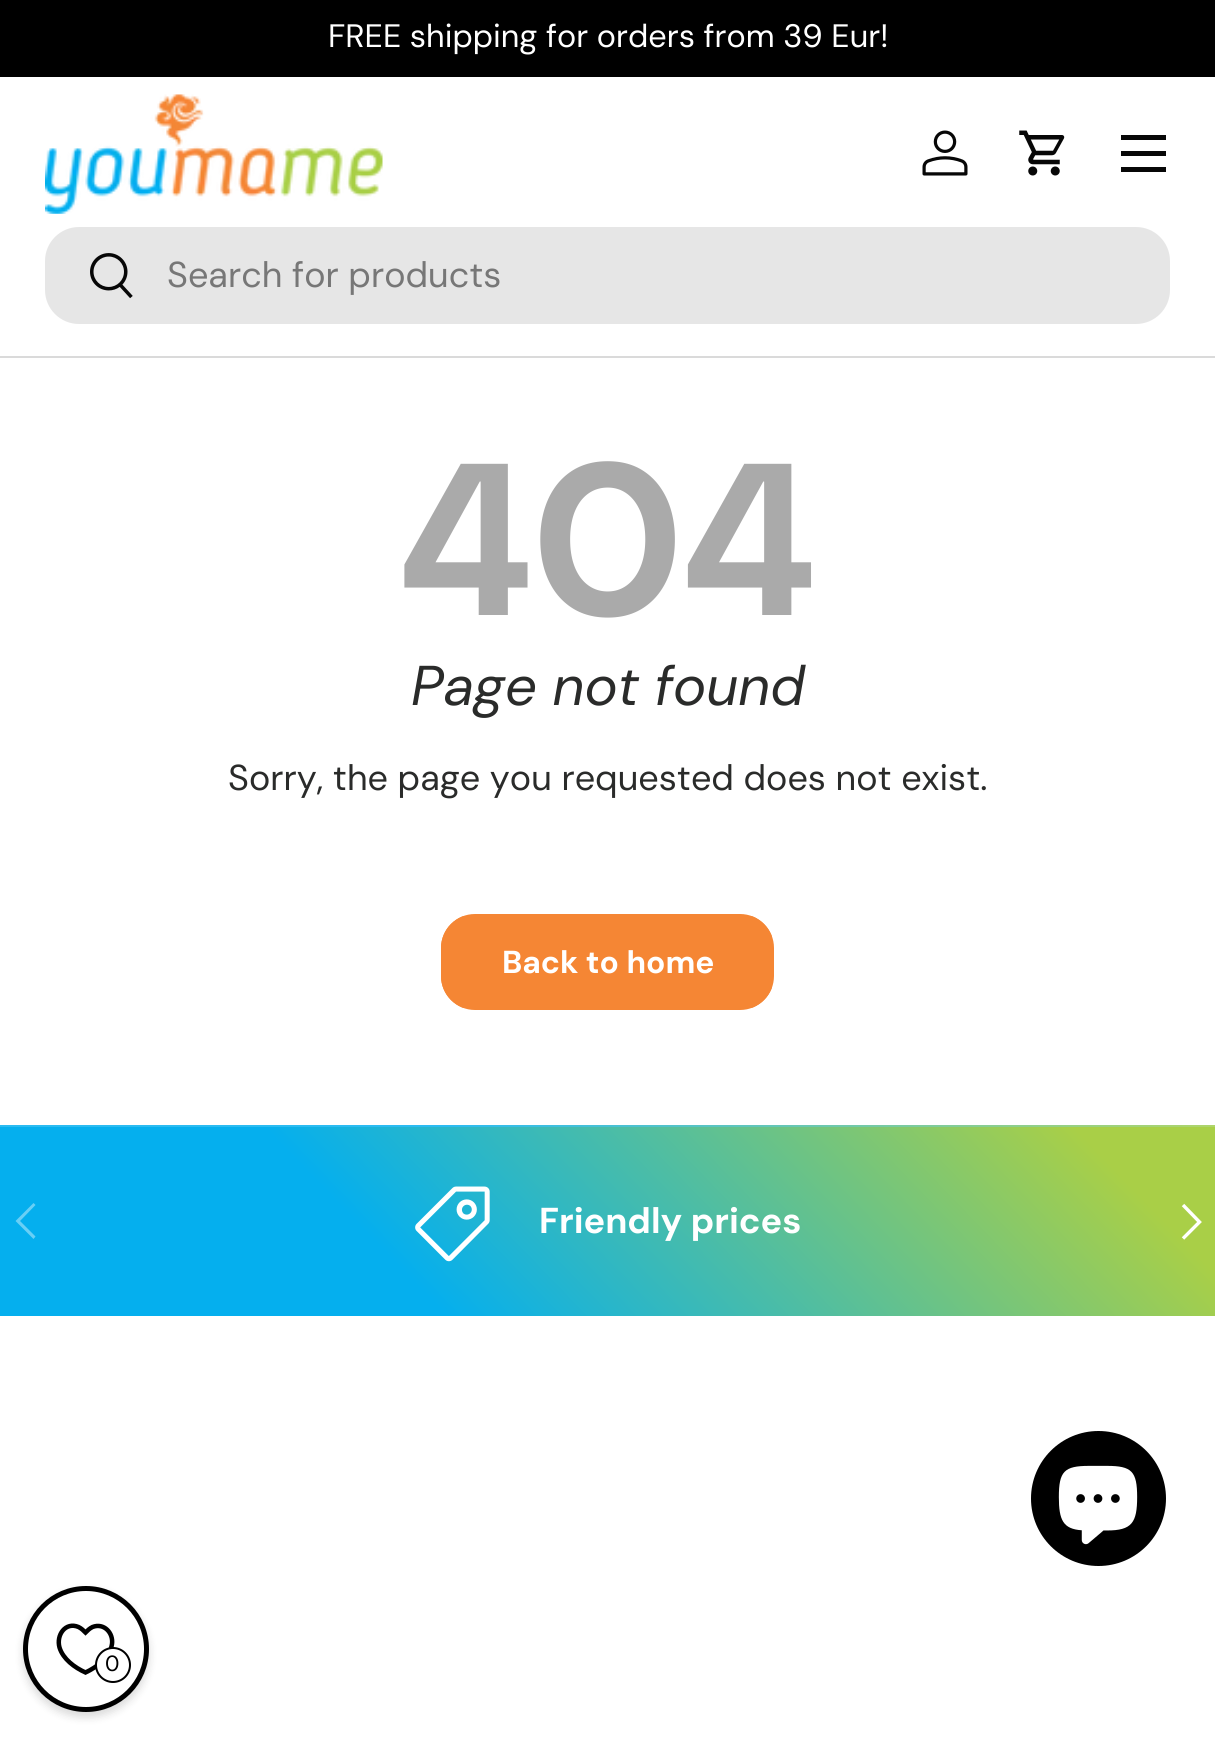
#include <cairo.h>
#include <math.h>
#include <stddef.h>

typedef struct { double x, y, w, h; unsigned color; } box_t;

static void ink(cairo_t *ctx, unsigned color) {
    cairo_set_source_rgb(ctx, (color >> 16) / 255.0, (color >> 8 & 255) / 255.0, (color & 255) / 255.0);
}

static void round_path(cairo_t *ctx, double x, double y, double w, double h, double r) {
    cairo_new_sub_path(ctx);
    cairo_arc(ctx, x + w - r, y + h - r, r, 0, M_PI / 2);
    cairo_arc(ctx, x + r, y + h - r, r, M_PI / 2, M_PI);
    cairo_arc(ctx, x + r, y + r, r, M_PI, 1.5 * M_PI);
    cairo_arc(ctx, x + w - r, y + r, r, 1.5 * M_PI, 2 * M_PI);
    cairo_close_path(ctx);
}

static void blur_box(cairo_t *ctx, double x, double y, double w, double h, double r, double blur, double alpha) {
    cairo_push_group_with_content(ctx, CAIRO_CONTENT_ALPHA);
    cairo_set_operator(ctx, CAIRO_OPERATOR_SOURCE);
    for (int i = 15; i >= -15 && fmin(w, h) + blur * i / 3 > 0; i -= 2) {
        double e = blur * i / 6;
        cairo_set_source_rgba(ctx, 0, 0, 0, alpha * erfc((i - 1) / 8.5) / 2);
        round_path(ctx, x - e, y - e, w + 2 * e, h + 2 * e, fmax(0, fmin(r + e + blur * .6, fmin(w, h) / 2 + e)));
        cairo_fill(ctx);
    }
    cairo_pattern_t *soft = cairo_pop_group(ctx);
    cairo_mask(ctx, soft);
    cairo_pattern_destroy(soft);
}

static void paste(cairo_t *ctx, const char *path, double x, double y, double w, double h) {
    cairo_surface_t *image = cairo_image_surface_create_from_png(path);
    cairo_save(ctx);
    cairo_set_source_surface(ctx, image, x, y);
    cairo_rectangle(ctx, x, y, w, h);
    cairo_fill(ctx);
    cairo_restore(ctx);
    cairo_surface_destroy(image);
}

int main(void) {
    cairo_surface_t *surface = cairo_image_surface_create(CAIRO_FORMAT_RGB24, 1215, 1757);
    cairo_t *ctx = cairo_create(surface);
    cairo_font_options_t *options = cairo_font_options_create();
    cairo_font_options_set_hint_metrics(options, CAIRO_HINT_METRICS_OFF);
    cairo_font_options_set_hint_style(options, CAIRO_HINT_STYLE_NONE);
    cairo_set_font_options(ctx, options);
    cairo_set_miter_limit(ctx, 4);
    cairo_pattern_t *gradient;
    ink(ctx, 0xFFFFFF);
    cairo_paint(ctx);
    ink(ctx, 0x000000);
    cairo_rectangle(ctx, 0, 0, 1215, 77);
    cairo_fill(ctx);
    cairo_select_font_face(ctx, "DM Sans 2", CAIRO_FONT_SLANT_NORMAL, CAIRO_FONT_WEIGHT_NORMAL);
    cairo_set_font_size(ctx, 32.4);
    ink(ctx, 0xFFFFFF);
    cairo_move_to(ctx, 328, 47);
    cairo_show_text(ctx, "FREE shipping for orders from 39 Eur!");
    ink(ctx, 0xDADADA);
    cairo_rectangle(ctx, 0, 356, 1215, 2);
    cairo_fill(ctx);
    paste(ctx, "media/1.png", 45, 94, 338, 120);
    paste(ctx, "media/2.png", 922, 130, 46, 46);
    paste(ctx, "media/3.png", 1019, 130, 46, 46);
    {
        static const box_t items[] = {
            {1121, 135, 45, 5, 0x070707},
            {1121, 167, 45, 5, 0x070707},
            {1121, 151, 45, 5, 0x070707},
        };
        for (size_t i = 0; i < sizeof items / sizeof *items; i++) {
            ink(ctx, items[i].color);
            cairo_rectangle(ctx, items[i].x, items[i].y, items[i].w, items[i].h);
            cairo_fill(ctx);
        }
    }
    ink(ctx, 0xE6E6E6);
    round_path(ctx, 45, 227, 1125, 97, 34);
    cairo_fill(ctx);
    paste(ctx, "media/4.png", 90, 253, 43, 46);
    cairo_select_font_face(ctx, "DM Sans", CAIRO_FONT_SLANT_NORMAL, CAIRO_FONT_WEIGHT_NORMAL);
    cairo_set_font_size(ctx, 36);
    ink(ctx, 0x777777);
    cairo_move_to(ctx, 167, 287);
    cairo_show_text(ctx, "Search for products");
    cairo_select_font_face(ctx, "DM Sans", CAIRO_FONT_SLANT_NORMAL, CAIRO_FONT_WEIGHT_BOLD);
    cairo_set_font_size(ctx, 216);
    ink(ctx, 0xAAAAAA);
    cairo_move_to(ctx, 399, 615);
    cairo_show_text(ctx, "404");
    cairo_select_font_face(ctx, "DM Sans", CAIRO_FONT_SLANT_ITALIC, CAIRO_FONT_WEIGHT_NORMAL);
    cairo_set_font_size(ctx, 56);
    ink(ctx, 0x2A2B2A);
    cairo_move_to(ctx, 411, 705);
    cairo_show_text(ctx, "Page not found");
    cairo_select_font_face(ctx, "DM Sans", CAIRO_FONT_SLANT_NORMAL, CAIRO_FONT_WEIGHT_NORMAL);
    cairo_set_font_size(ctx, 36);
    cairo_move_to(ctx, 228, 790);
    cairo_show_text(ctx, "Sorry, the page you requested does not exist.");
    cairo_save(ctx);
    round_path(ctx, 441, 914, 333, 96, 34);
    cairo_clip(ctx);
    gradient = cairo_pattern_create_linear(-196, 844, 754, 1080);
    cairo_pattern_add_color_stop_rgba(gradient, 0.6, 0.973, 0.631, 0.38, 1);
    cairo_pattern_add_color_stop_rgba(gradient, 0.6, 0.961, 0.525, 0.204, 1);
    cairo_pattern_add_color_stop_rgba(gradient, 1, 0.961, 0.525, 0.204, 1);
    cairo_set_source(ctx, gradient);
    cairo_pattern_destroy(gradient);
    cairo_rectangle(ctx, 441, 916, 331, 92);
    cairo_fill(ctx);
    cairo_restore(ctx);
    round_path(ctx, 442, 915, 331, 94, 33);
    ink(ctx, 0xF58634);
    cairo_stroke(ctx);
    cairo_select_font_face(ctx, "DM Sans 2", CAIRO_FONT_SLANT_NORMAL, CAIRO_FONT_WEIGHT_BOLD);
    cairo_set_font_size(ctx, 31.75);
    ink(ctx, 0xFFFFFF);
    cairo_move_to(ctx, 502, 973);
    cairo_show_text(ctx, "Back to home");
    gradient = cairo_pattern_create_linear(246, 1382, 969, 684);
    cairo_pattern_add_color_stop_rgba(gradient, 0.08, 0.169, 0.733, 0.945, 1);
    cairo_pattern_add_color_stop_rgba(gradient, 0.32, 0.169, 0.733, 0.945, 1);
    cairo_pattern_add_color_stop_rgba(gradient, 0.9, 0.714, 0.839, 0.388, 1);
    cairo_set_source(ctx, gradient);
    cairo_pattern_destroy(gradient);
    cairo_rectangle(ctx, 0, 1125, 1215, 2);
    cairo_fill(ctx);
    gradient = cairo_pattern_create_linear(246, 1571, 969, 873);
    cairo_pattern_add_color_stop_rgba(gradient, 0.08, 0.02, 0.686, 0.933, 1);
    cairo_pattern_add_color_stop_rgba(gradient, 0.32, 0.02, 0.686, 0.933, 1);
    cairo_pattern_add_color_stop_rgba(gradient, 0.9, 0.663, 0.812, 0.278, 1);
    cairo_set_source(ctx, gradient);
    cairo_pattern_destroy(gradient);
    cairo_rectangle(ctx, 0, 1127, 1215, 189);
    cairo_fill(ctx);
    ink(ctx, 0x69CFF5);
    cairo_new_path(ctx);
    cairo_move_to(ctx, 15.5, 1221);
    cairo_line_to(ctx, 33.5, 1203);
    cairo_line_to(ctx, 35.5, 1205);
    cairo_line_to(ctx, 20, 1221);
    cairo_line_to(ctx, 35.5, 1236.5);
    cairo_line_to(ctx, 33.5, 1239);
    cairo_close_path(ctx);
    cairo_fill(ctx);
    cairo_new_path(ctx);
    cairo_move_to(ctx, 1183, 1205);
    cairo_line_to(ctx, 1199.5, 1222);
    cairo_line_to(ctx, 1183, 1238.5);
    ink(ctx, 0xFFFFFF);
    cairo_set_line_width(ctx, 3.4);
    cairo_stroke(ctx);
    paste(ctx, "media/5.png", 415, 1186, 75, 76);
    cairo_select_font_face(ctx, "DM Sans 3", CAIRO_FONT_SLANT_NORMAL, CAIRO_FONT_WEIGHT_BOLD);
    cairo_set_font_size(ctx, 36);
    cairo_move_to(ctx, 539, 1233);
    cairo_show_text(ctx, "Friendly prices");
    ink(ctx, 0x000000);
    cairo_new_path(ctx);
    cairo_arc(ctx, 1098.5, 1498.5, 67.5, 0, 2 * M_PI);
    cairo_fill(ctx);
    paste(ctx, "media/6.png", 1058, 1465, 80, 80);
    ink(ctx, 0x000000);
    blur_box(ctx, 23, 1591, 126, 126, 63, 4.5, 0.15);
    ink(ctx, 0xFFFFFF);
    cairo_arc(ctx, 86, 1649, 60.5, 0, 2 * M_PI);
    cairo_fill_preserve(ctx);
    ink(ctx, 0x000000);
    cairo_set_line_width(ctx, 5);
    cairo_stroke(ctx);
    cairo_new_path(ctx);
    cairo_move_to(ctx, 85.5, 1672.5);
    cairo_curve_to(ctx, 74.5, 1667.5, 63, 1659, 59.5, 1647.5);
    cairo_curve_to(ctx, 56, 1635, 65.5, 1621.5, 78.5, 1627);
    cairo_curve_to(ctx, 81.5, 1628.5, 83.5, 1630.5, 85.5, 1632.5);
    cairo_curve_to(ctx, 87.5, 1630.5, 89.5, 1628.5, 92.5, 1627);
    cairo_curve_to(ctx, 104, 1622.5, 113.5, 1633, 112, 1644);
    cairo_curve_to(ctx, 110, 1657.5, 97, 1667, 85.5, 1672.5);
    cairo_close_path(ctx);
    cairo_set_line_width(ctx, 4.5);
    cairo_stroke(ctx);
    ink(ctx, 0xFFFFFF);
    cairo_arc(ctx, 113, 1665, 17, 0, 2 * M_PI);
    cairo_fill_preserve(ctx);
    ink(ctx, 0x000000);
    cairo_set_line_width(ctx, 2);
    cairo_stroke(ctx);
    cairo_select_font_face(ctx, "DM Sans 3", CAIRO_FONT_SLANT_NORMAL, CAIRO_FONT_WEIGHT_NORMAL);
    cairo_set_font_size(ctx, 22);
    cairo_move_to(ctx, 105, 1671);
    cairo_show_text(ctx, "0");
    cairo_surface_write_to_png(surface, "image.png");
    cairo_font_options_destroy(options);
    cairo_destroy(ctx);
    cairo_surface_destroy(surface);
    return 0;
}
